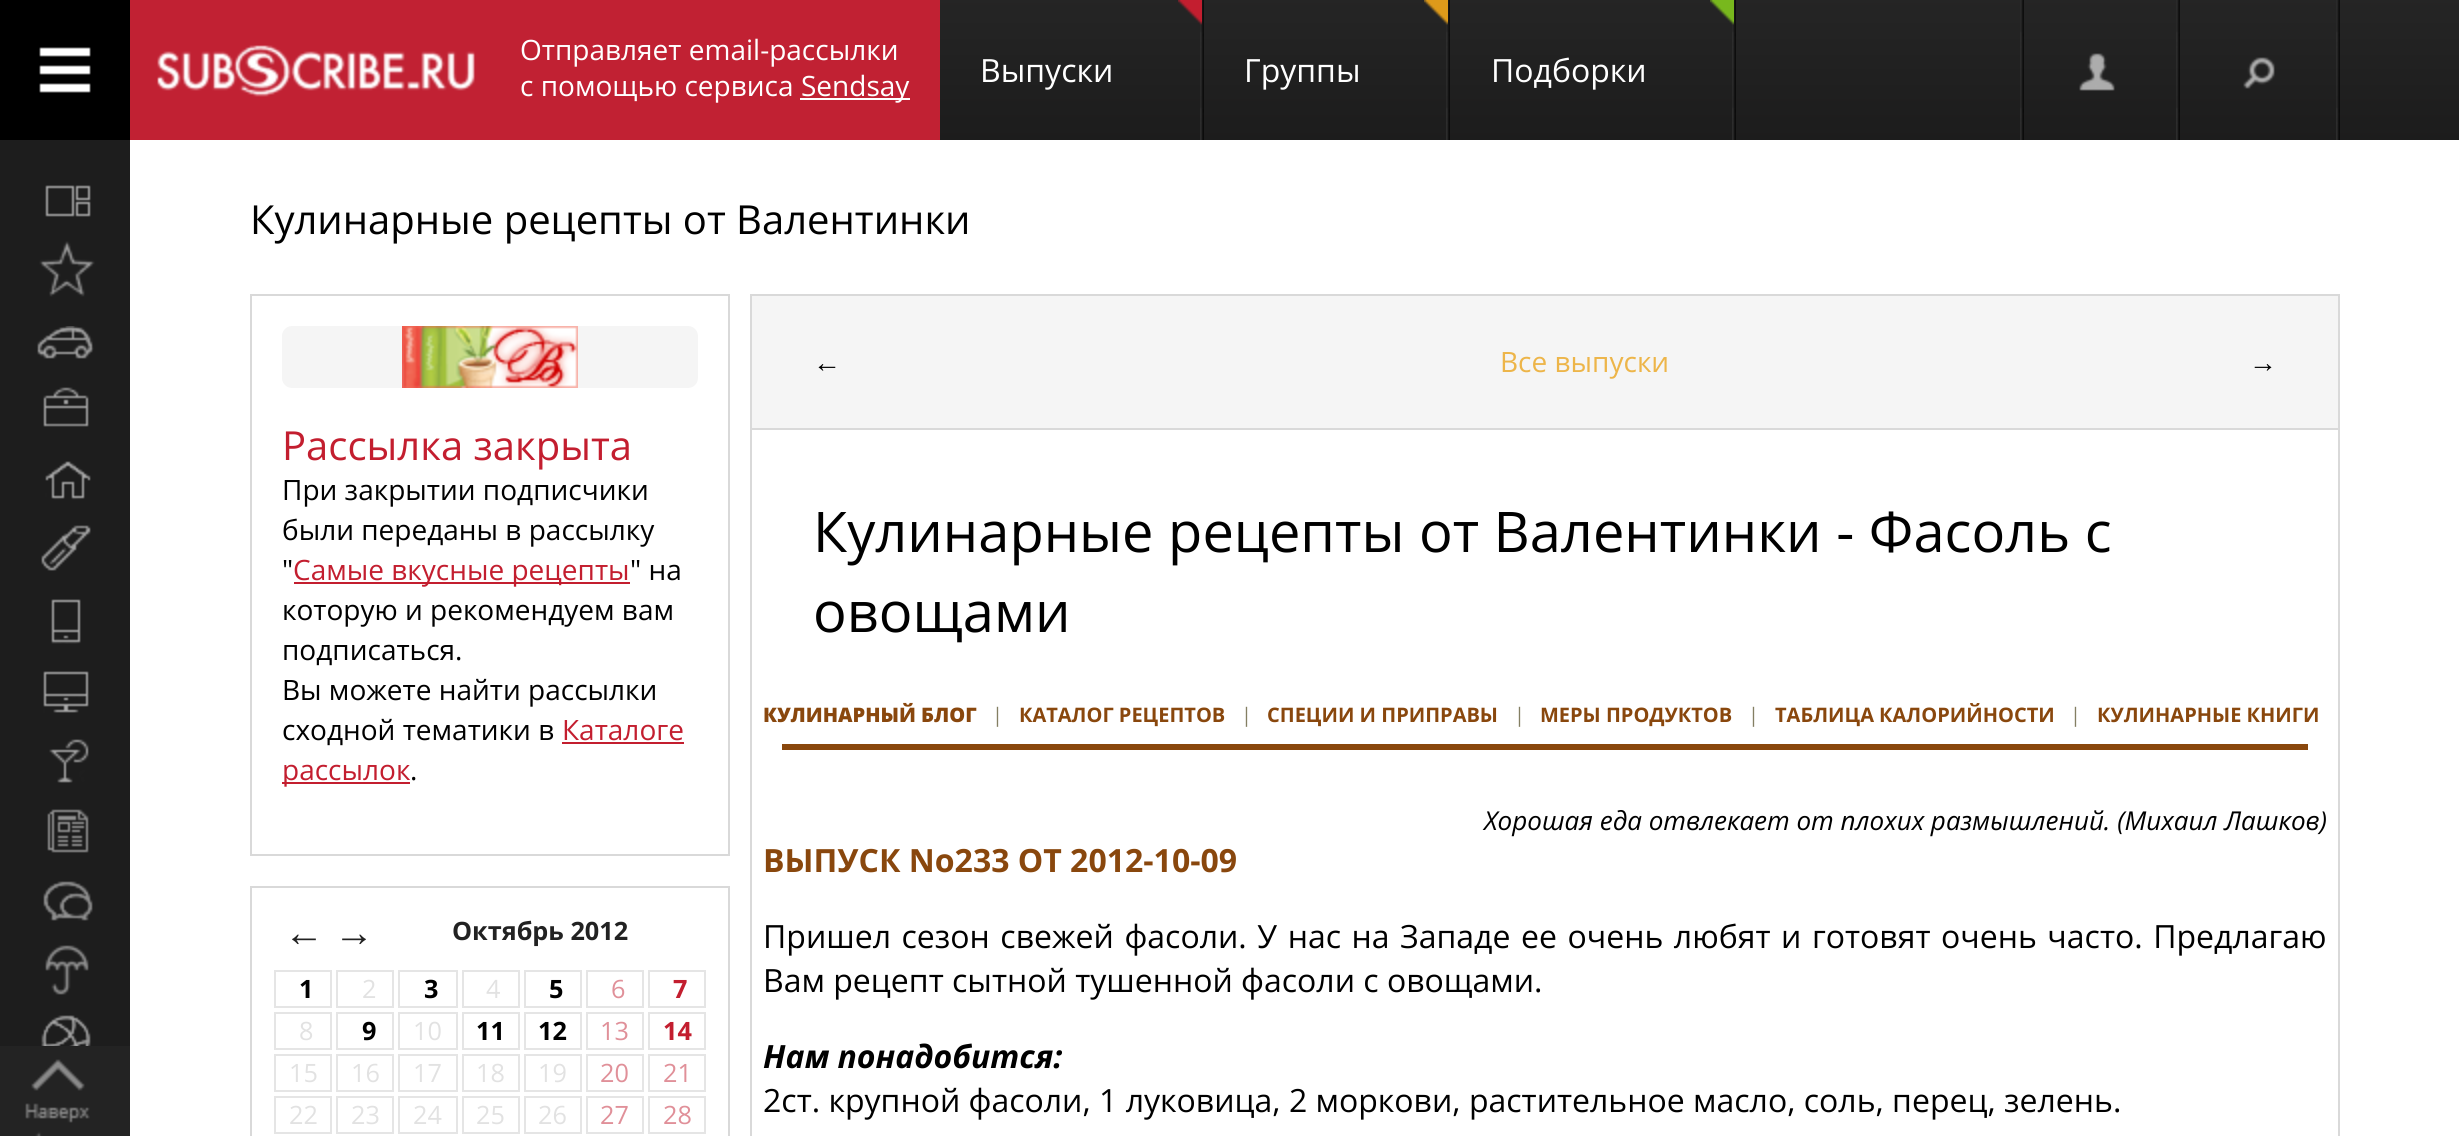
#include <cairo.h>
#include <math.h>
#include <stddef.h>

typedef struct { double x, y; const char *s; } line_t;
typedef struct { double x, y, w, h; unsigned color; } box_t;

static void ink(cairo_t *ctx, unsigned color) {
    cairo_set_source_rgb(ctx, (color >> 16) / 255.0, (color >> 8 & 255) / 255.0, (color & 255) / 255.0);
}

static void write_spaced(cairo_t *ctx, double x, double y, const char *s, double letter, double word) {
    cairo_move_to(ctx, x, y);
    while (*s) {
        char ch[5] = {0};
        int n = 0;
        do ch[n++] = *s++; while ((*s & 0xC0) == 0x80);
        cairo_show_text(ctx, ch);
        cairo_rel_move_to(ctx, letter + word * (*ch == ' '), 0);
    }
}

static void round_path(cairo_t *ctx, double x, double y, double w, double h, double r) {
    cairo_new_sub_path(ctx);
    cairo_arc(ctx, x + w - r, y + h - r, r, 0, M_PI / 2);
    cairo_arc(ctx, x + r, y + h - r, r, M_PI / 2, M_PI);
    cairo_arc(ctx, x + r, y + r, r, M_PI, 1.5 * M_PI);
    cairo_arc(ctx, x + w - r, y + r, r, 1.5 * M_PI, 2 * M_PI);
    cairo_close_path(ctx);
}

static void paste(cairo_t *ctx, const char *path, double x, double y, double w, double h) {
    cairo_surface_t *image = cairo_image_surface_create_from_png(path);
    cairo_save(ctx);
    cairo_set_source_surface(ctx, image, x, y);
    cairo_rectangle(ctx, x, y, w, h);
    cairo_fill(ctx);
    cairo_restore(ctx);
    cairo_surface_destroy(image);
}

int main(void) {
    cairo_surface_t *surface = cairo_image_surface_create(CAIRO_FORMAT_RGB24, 2459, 1136);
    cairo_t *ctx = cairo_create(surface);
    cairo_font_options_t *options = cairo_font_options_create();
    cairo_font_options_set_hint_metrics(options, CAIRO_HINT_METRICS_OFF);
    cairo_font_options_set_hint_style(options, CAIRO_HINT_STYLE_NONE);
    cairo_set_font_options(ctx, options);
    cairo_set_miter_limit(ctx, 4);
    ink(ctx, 0xFFFFFF);
    cairo_paint(ctx);
    paste(ctx, "media/1.png", 940, 0, 1519, 140);
    ink(ctx, 0x000000);
    cairo_rectangle(ctx, 0, 0, 130, 140);
    cairo_fill(ctx);
    paste(ctx, "media/2.png", 39, 47, 52, 46);
    ink(ctx, 0xC12133);
    cairo_rectangle(ctx, 130, 0, 810, 140);
    cairo_fill(ctx);
    paste(ctx, "media/3.png", 157, 45, 318, 52);
    cairo_select_font_face(ctx, "Open Sans", CAIRO_FONT_SLANT_NORMAL, CAIRO_FONT_WEIGHT_NORMAL);
    cairo_set_font_size(ctx, 28);
    ink(ctx, 0xFFFFFF);
    cairo_move_to(ctx, 520, 60);
    cairo_show_text(ctx, "Отправляет email-рассылки");
    cairo_move_to(ctx, 520, 96);
    cairo_show_text(ctx, "с помощью сервиса");
    cairo_rectangle(ctx, 800, 98, 110, 2);
    cairo_fill(ctx);
    cairo_move_to(ctx, 801, 96);
    cairo_show_text(ctx, "Sendsay");
    paste(ctx, "media/4.png", 1200, 0, 4, 140);
    paste(ctx, "media/5.png", 1178, 0, 24, 25);
    cairo_set_font_size(ctx, 32);
    cairo_move_to(ctx, 980, 82);
    cairo_show_text(ctx, "Выпуски");
    paste(ctx, "media/4.png", 1446, 0, 4, 140);
    paste(ctx, "media/6.png", 1424, 0, 24, 25);
    cairo_move_to(ctx, 1244, 82);
    cairo_show_text(ctx, "Группы");
    paste(ctx, "media/4.png", 1732, 0, 4, 140);
    paste(ctx, "media/7.png", 1710, 0, 24, 25);
    cairo_move_to(ctx, 1491, 82);
    cairo_show_text(ctx, "Подборки");
    paste(ctx, "media/4.png", 2020, 0, 4, 140);
    paste(ctx, "media/4.png", 2176, 0, 4, 140);
    paste(ctx, "media/8.png", 2079, 53, 36, 38);
    paste(ctx, "media/4.png", 2336, 0, 4, 140);
    paste(ctx, "media/9.png", 2243, 57, 32, 32);
    ink(ctx, 0x1D1D1D);
    cairo_rectangle(ctx, 0, 140, 130, 906);
    cairo_fill(ctx);
    paste(ctx, "media/10.png", 45, 185, 46, 32);
    paste(ctx, "media/11.png", 39, 241, 56, 56);
    paste(ctx, "media/12.png", 37, 326, 57, 33);
    paste(ctx, "media/13.png", 43, 387, 46, 40);
    paste(ctx, "media/14.png", 45, 461, 46, 39);
    paste(ctx, "media/15.png", 41, 525, 50, 46);
    paste(ctx, "media/16.png", 51, 599, 30, 45);
    paste(ctx, "media/17.png", 43, 671, 46, 42);
    paste(ctx, "media/18.png", 49, 739, 40, 44);
    paste(ctx, "media/19.png", 47, 809, 42, 44);
    paste(ctx, "media/20.png", 43, 881, 50, 40);
    paste(ctx, "media/21.png", 45, 945, 44, 50);
    paste(ctx, "media/22.png", 41, 1015, 50, 31);
    cairo_set_font_size(ctx, 40);
    ink(ctx, 0x000000);
    cairo_move_to(ctx, 250, 234);
    cairo_show_text(ctx, "Кулинарные рецепты от Валентинки");
    cairo_rectangle(ctx, 251, 295, 478, 560);
    ink(ctx, 0xD9D9D9);
    cairo_stroke(ctx);
    ink(ctx, 0xF5F5F5);
    round_path(ctx, 282, 326, 416, 62, 10);
    cairo_fill(ctx);
    paste(ctx, "media/23.png", 402, 326, 176, 62);
    ink(ctx, 0xC31E2F);
    cairo_move_to(ctx, 282, 460);
    cairo_show_text(ctx, "Рассылка закрыта");
    cairo_set_font_size(ctx, 28);
    ink(ctx, 0x000000);
    {
        static const line_t items[] = {
            {282, 500, "При закрытии подписчики"},
            {282, 540, "были переданы в рассылку"},
            {282, 580, "\""},
        };
        for (size_t i = 0; i < sizeof items / sizeof *items; i++) {
            cairo_move_to(ctx, items[i].x, items[i].y);
            cairo_show_text(ctx, items[i].s);
        }
    }
    ink(ctx, 0xC31E2F);
    cairo_rectangle(ctx, 294, 582, 336, 2);
    cairo_fill(ctx);
    cairo_move_to(ctx, 293, 580);
    cairo_show_text(ctx, "Самые вкусные рецепты");
    ink(ctx, 0x000000);
    {
        static const line_t items[] = {
            {630, 580, "\" на"},
            {282, 620, "которую и рекомендуем вам"},
            {282, 660, "подписаться."},
            {282, 700, "Вы можете найти рассылки"},
            {282, 740, "сходной тематики в"},
        };
        for (size_t i = 0; i < sizeof items / sizeof *items; i++) {
            cairo_move_to(ctx, items[i].x, items[i].y);
            cairo_show_text(ctx, items[i].s);
        }
    }
    ink(ctx, 0xC31E2F);
    cairo_move_to(ctx, 562, 740);
    cairo_show_text(ctx, "Каталоге");
    cairo_rectangle(ctx, 562, 742, 122, 2);
    cairo_fill(ctx);
    cairo_rectangle(ctx, 282, 782, 128, 2);
    cairo_fill(ctx);
    cairo_move_to(ctx, 282, 780);
    cairo_show_text(ctx, "рассылок");
    ink(ctx, 0x000000);
    cairo_move_to(ctx, 410, 780);
    cairo_show_text(ctx, ".");
    cairo_rectangle(ctx, 251, 887, 478, 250);
    ink(ctx, 0xD9D9D9);
    cairo_stroke(ctx);
    cairo_select_font_face(ctx, "Liberation Sans", CAIRO_FONT_SLANT_NORMAL, CAIRO_FONT_WEIGHT_BOLD);
    cairo_set_font_size(ctx, 40);
    ink(ctx, 0x222222);
    cairo_move_to(ctx, 284, 946);
    cairo_show_text(ctx, "←");
    cairo_move_to(ctx, 334, 946);
    cairo_show_text(ctx, "→");
    cairo_select_font_face(ctx, "Open Sans", CAIRO_FONT_SLANT_NORMAL, CAIRO_FONT_WEIGHT_BOLD);
    cairo_set_font_size(ctx, 25.25);
    cairo_move_to(ctx, 452, 940);
    cairo_show_text(ctx, "Октябрь 2012");
    cairo_rectangle(ctx, 275, 971, 56, 36);
    ink(ctx, 0xE5E5E5);
    cairo_stroke(ctx);
    ink(ctx, 0x000000);
    cairo_move_to(ctx, 299, 998);
    cairo_show_text(ctx, "1");
    cairo_rectangle(ctx, 337, 971, 56, 36);
    ink(ctx, 0xE5E5E5);
    cairo_stroke(ctx);
    cairo_select_font_face(ctx, "Open Sans", CAIRO_FONT_SLANT_NORMAL, CAIRO_FONT_WEIGHT_NORMAL);
    ink(ctx, 0xE2E2E2);
    cairo_move_to(ctx, 362, 998);
    cairo_show_text(ctx, "2");
    cairo_rectangle(ctx, 399, 971, 58, 36);
    ink(ctx, 0xE5E5E5);
    cairo_stroke(ctx);
    cairo_select_font_face(ctx, "Open Sans", CAIRO_FONT_SLANT_NORMAL, CAIRO_FONT_WEIGHT_BOLD);
    ink(ctx, 0x000000);
    cairo_move_to(ctx, 424, 998);
    cairo_show_text(ctx, "3");
    cairo_rectangle(ctx, 463, 971, 56, 36);
    ink(ctx, 0xE5E5E5);
    cairo_stroke(ctx);
    cairo_select_font_face(ctx, "Open Sans", CAIRO_FONT_SLANT_NORMAL, CAIRO_FONT_WEIGHT_NORMAL);
    ink(ctx, 0xE2E2E2);
    cairo_move_to(ctx, 486, 998);
    cairo_show_text(ctx, "4");
    cairo_rectangle(ctx, 525, 971, 56, 36);
    ink(ctx, 0xE5E5E5);
    cairo_stroke(ctx);
    cairo_select_font_face(ctx, "Open Sans", CAIRO_FONT_SLANT_NORMAL, CAIRO_FONT_WEIGHT_BOLD);
    ink(ctx, 0x000000);
    cairo_move_to(ctx, 549, 998);
    cairo_show_text(ctx, "5");
    cairo_rectangle(ctx, 587, 971, 56, 36);
    ink(ctx, 0xE5E5E5);
    cairo_stroke(ctx);
    cairo_select_font_face(ctx, "Open Sans", CAIRO_FONT_SLANT_NORMAL, CAIRO_FONT_WEIGHT_NORMAL);
    ink(ctx, 0xE09099);
    cairo_move_to(ctx, 611, 998);
    cairo_show_text(ctx, "6");
    cairo_rectangle(ctx, 649, 971, 56, 36);
    ink(ctx, 0xE5E5E5);
    cairo_stroke(ctx);
    cairo_select_font_face(ctx, "Open Sans", CAIRO_FONT_SLANT_NORMAL, CAIRO_FONT_WEIGHT_BOLD);
    ink(ctx, 0xC31E2F);
    cairo_move_to(ctx, 673, 998);
    cairo_show_text(ctx, "7");
    cairo_rectangle(ctx, 275, 1013, 56, 36);
    ink(ctx, 0xE5E5E5);
    cairo_stroke(ctx);
    cairo_select_font_face(ctx, "Open Sans", CAIRO_FONT_SLANT_NORMAL, CAIRO_FONT_WEIGHT_NORMAL);
    ink(ctx, 0xE2E2E2);
    cairo_move_to(ctx, 299, 1040);
    cairo_show_text(ctx, "8");
    cairo_rectangle(ctx, 337, 1013, 56, 36);
    ink(ctx, 0xE5E5E5);
    cairo_stroke(ctx);
    cairo_select_font_face(ctx, "Open Sans", CAIRO_FONT_SLANT_NORMAL, CAIRO_FONT_WEIGHT_BOLD);
    ink(ctx, 0x000000);
    cairo_move_to(ctx, 362, 1040);
    cairo_show_text(ctx, "9");
    cairo_rectangle(ctx, 399, 1013, 58, 36);
    ink(ctx, 0xE5E5E5);
    cairo_stroke(ctx);
    cairo_select_font_face(ctx, "Open Sans", CAIRO_FONT_SLANT_NORMAL, CAIRO_FONT_WEIGHT_NORMAL);
    ink(ctx, 0xE2E2E2);
    cairo_move_to(ctx, 413, 1040);
    cairo_show_text(ctx, "10");
    cairo_rectangle(ctx, 463, 1013, 56, 36);
    ink(ctx, 0xE5E5E5);
    cairo_stroke(ctx);
    cairo_select_font_face(ctx, "Open Sans", CAIRO_FONT_SLANT_NORMAL, CAIRO_FONT_WEIGHT_BOLD);
    ink(ctx, 0x000000);
    cairo_move_to(ctx, 476, 1040);
    cairo_show_text(ctx, "11");
    cairo_rectangle(ctx, 525, 1013, 56, 36);
    ink(ctx, 0xE5E5E5);
    cairo_stroke(ctx);
    ink(ctx, 0x000000);
    cairo_move_to(ctx, 538, 1040);
    cairo_show_text(ctx, "12");
    cairo_rectangle(ctx, 587, 1013, 56, 36);
    ink(ctx, 0xE5E5E5);
    cairo_stroke(ctx);
    cairo_select_font_face(ctx, "Open Sans", CAIRO_FONT_SLANT_NORMAL, CAIRO_FONT_WEIGHT_NORMAL);
    ink(ctx, 0xE09099);
    cairo_move_to(ctx, 600, 1040);
    cairo_show_text(ctx, "13");
    cairo_rectangle(ctx, 649, 1013, 56, 36);
    ink(ctx, 0xE5E5E5);
    cairo_stroke(ctx);
    cairo_select_font_face(ctx, "Open Sans", CAIRO_FONT_SLANT_NORMAL, CAIRO_FONT_WEIGHT_BOLD);
    ink(ctx, 0xC31E2F);
    cairo_move_to(ctx, 663, 1040);
    cairo_show_text(ctx, "14");
    cairo_rectangle(ctx, 275, 1055, 56, 36);
    ink(ctx, 0xE5E5E5);
    cairo_stroke(ctx);
    cairo_select_font_face(ctx, "Open Sans", CAIRO_FONT_SLANT_NORMAL, CAIRO_FONT_WEIGHT_NORMAL);
    ink(ctx, 0xE2E2E2);
    cairo_move_to(ctx, 289, 1082);
    cairo_show_text(ctx, "15");
    cairo_rectangle(ctx, 337, 1055, 56, 36);
    ink(ctx, 0xE5E5E5);
    cairo_stroke(ctx);
    ink(ctx, 0xE2E2E2);
    cairo_move_to(ctx, 351, 1082);
    cairo_show_text(ctx, "16");
    cairo_rectangle(ctx, 399, 1055, 58, 36);
    ink(ctx, 0xE5E5E5);
    cairo_stroke(ctx);
    ink(ctx, 0xE2E2E2);
    cairo_move_to(ctx, 413, 1082);
    cairo_show_text(ctx, "17");
    cairo_rectangle(ctx, 463, 1055, 56, 36);
    ink(ctx, 0xE5E5E5);
    cairo_stroke(ctx);
    ink(ctx, 0xE2E2E2);
    cairo_move_to(ctx, 476, 1082);
    cairo_show_text(ctx, "18");
    cairo_rectangle(ctx, 525, 1055, 56, 36);
    ink(ctx, 0xE5E5E5);
    cairo_stroke(ctx);
    ink(ctx, 0xE2E2E2);
    cairo_move_to(ctx, 538, 1082);
    cairo_show_text(ctx, "19");
    cairo_rectangle(ctx, 587, 1055, 56, 36);
    ink(ctx, 0xE5E5E5);
    cairo_stroke(ctx);
    ink(ctx, 0xE09099);
    cairo_move_to(ctx, 600, 1082);
    cairo_show_text(ctx, "20");
    cairo_rectangle(ctx, 649, 1055, 56, 36);
    ink(ctx, 0xE5E5E5);
    cairo_stroke(ctx);
    ink(ctx, 0xE09099);
    cairo_move_to(ctx, 663, 1082);
    cairo_show_text(ctx, "21");
    cairo_rectangle(ctx, 275, 1097, 56, 36);
    ink(ctx, 0xE5E5E5);
    cairo_stroke(ctx);
    ink(ctx, 0xE2E2E2);
    cairo_move_to(ctx, 289, 1124);
    cairo_show_text(ctx, "22");
    cairo_rectangle(ctx, 337, 1097, 56, 36);
    ink(ctx, 0xE5E5E5);
    cairo_stroke(ctx);
    ink(ctx, 0xE2E2E2);
    cairo_move_to(ctx, 351, 1124);
    cairo_show_text(ctx, "23");
    cairo_rectangle(ctx, 399, 1097, 58, 36);
    ink(ctx, 0xE5E5E5);
    cairo_stroke(ctx);
    ink(ctx, 0xE2E2E2);
    cairo_move_to(ctx, 413, 1124);
    cairo_show_text(ctx, "24");
    cairo_rectangle(ctx, 463, 1097, 56, 36);
    ink(ctx, 0xE5E5E5);
    cairo_stroke(ctx);
    ink(ctx, 0xE2E2E2);
    cairo_move_to(ctx, 476, 1124);
    cairo_show_text(ctx, "25");
    cairo_rectangle(ctx, 525, 1097, 56, 36);
    ink(ctx, 0xE5E5E5);
    cairo_stroke(ctx);
    ink(ctx, 0xE2E2E2);
    cairo_move_to(ctx, 538, 1124);
    cairo_show_text(ctx, "26");
    cairo_rectangle(ctx, 587, 1097, 56, 36);
    ink(ctx, 0xE5E5E5);
    cairo_stroke(ctx);
    ink(ctx, 0xE09099);
    cairo_move_to(ctx, 600, 1124);
    cairo_show_text(ctx, "27");
    cairo_rectangle(ctx, 649, 1097, 56, 36);
    ink(ctx, 0xE5E5E5);
    cairo_stroke(ctx);
    ink(ctx, 0xE09099);
    cairo_move_to(ctx, 663, 1124);
    cairo_show_text(ctx, "28");
    {
        static const box_t items[] = {
            {752, 296, 1586, 132, 0xF5F5F5},
            {750, 294, 1590, 2, 0xD9D9D9},
            {2338, 294, 2, 134, 0xD9D9D9},
            {750, 294, 2, 134, 0xD9D9D9},
        };
        for (size_t i = 0; i < sizeof items / sizeof *items; i++) {
            ink(ctx, items[i].color);
            cairo_rectangle(ctx, items[i].x, items[i].y, items[i].w, items[i].h);
            cairo_fill(ctx);
        }
    }
    cairo_select_font_face(ctx, "Liberation Sans", CAIRO_FONT_SLANT_NORMAL, CAIRO_FONT_WEIGHT_NORMAL);
    cairo_set_font_size(ctx, 28);
    ink(ctx, 0x000000);
    cairo_move_to(ctx, 813, 372);
    cairo_show_text(ctx, "←");
    cairo_select_font_face(ctx, "Open Sans", CAIRO_FONT_SLANT_NORMAL, CAIRO_FONT_WEIGHT_NORMAL);
    ink(ctx, 0xEDB549);
    cairo_move_to(ctx, 1500, 372);
    cairo_show_text(ctx, "Все выпуски");
    cairo_select_font_face(ctx, "Liberation Sans", CAIRO_FONT_SLANT_NORMAL, CAIRO_FONT_WEIGHT_NORMAL);
    ink(ctx, 0x000000);
    cairo_move_to(ctx, 2249, 372);
    cairo_show_text(ctx, "→");
    cairo_rectangle(ctx, 751, 429, 1588, 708);
    ink(ctx, 0xD9D9D9);
    cairo_stroke(ctx);
    cairo_select_font_face(ctx, "Open Sans", CAIRO_FONT_SLANT_NORMAL, CAIRO_FONT_WEIGHT_NORMAL);
    cairo_set_font_size(ctx, 56);
    ink(ctx, 0x000000);
    cairo_move_to(ctx, 813, 552);
    cairo_show_text(ctx, "Кулинарные рецепты от Валентинки - Фасоль с");
    cairo_move_to(ctx, 813, 632);
    cairo_show_text(ctx, "овощами");
    cairo_select_font_face(ctx, "Open Sans ExtraBold", CAIRO_FONT_SLANT_NORMAL, CAIRO_FONT_WEIGHT_NORMAL);
    cairo_set_font_size(ctx, 20);
    ink(ctx, 0x89470D);
    cairo_move_to(ctx, 763, 722);
    cairo_show_text(ctx, "КУЛИНАРНЫЙ БЛОГ");
    cairo_select_font_face(ctx, "Open Sans", CAIRO_FONT_SLANT_NORMAL, CAIRO_FONT_WEIGHT_NORMAL);
    ink(ctx, 0x847F63);
    cairo_move_to(ctx, 992, 722);
    cairo_show_text(ctx, "|");
    cairo_select_font_face(ctx, "Open Sans", CAIRO_FONT_SLANT_NORMAL, CAIRO_FONT_WEIGHT_BOLD);
    ink(ctx, 0x89470D);
    cairo_move_to(ctx, 1019, 722);
    cairo_show_text(ctx, "КАТАЛОГ РЕЦЕПТОВ");
    cairo_select_font_face(ctx, "Open Sans", CAIRO_FONT_SLANT_NORMAL, CAIRO_FONT_WEIGHT_NORMAL);
    ink(ctx, 0x847F63);
    cairo_move_to(ctx, 1241, 722);
    cairo_show_text(ctx, "|");
    cairo_select_font_face(ctx, "Open Sans", CAIRO_FONT_SLANT_NORMAL, CAIRO_FONT_WEIGHT_BOLD);
    ink(ctx, 0x89470D);
    cairo_move_to(ctx, 1267, 722);
    cairo_show_text(ctx, "СПЕЦИИ И ПРИПРАВЫ");
    cairo_select_font_face(ctx, "Open Sans", CAIRO_FONT_SLANT_NORMAL, CAIRO_FONT_WEIGHT_NORMAL);
    ink(ctx, 0x847F63);
    cairo_move_to(ctx, 1514, 722);
    cairo_show_text(ctx, "|");
    cairo_select_font_face(ctx, "Open Sans", CAIRO_FONT_SLANT_NORMAL, CAIRO_FONT_WEIGHT_BOLD);
    ink(ctx, 0x89470D);
    cairo_move_to(ctx, 1540, 722);
    cairo_show_text(ctx, "МЕРЫ ПРОДУКТОВ");
    cairo_select_font_face(ctx, "Open Sans", CAIRO_FONT_SLANT_NORMAL, CAIRO_FONT_WEIGHT_NORMAL);
    ink(ctx, 0x847F63);
    cairo_move_to(ctx, 1748, 722);
    cairo_show_text(ctx, "|");
    cairo_select_font_face(ctx, "Open Sans", CAIRO_FONT_SLANT_NORMAL, CAIRO_FONT_WEIGHT_BOLD);
    ink(ctx, 0x89470D);
    cairo_move_to(ctx, 1775, 722);
    cairo_show_text(ctx, "ТАБЛИЦА КАЛОРИЙНОСТИ");
    cairo_select_font_face(ctx, "Open Sans", CAIRO_FONT_SLANT_NORMAL, CAIRO_FONT_WEIGHT_NORMAL);
    ink(ctx, 0x847F63);
    cairo_move_to(ctx, 2070, 722);
    cairo_show_text(ctx, "|");
    cairo_select_font_face(ctx, "Open Sans", CAIRO_FONT_SLANT_NORMAL, CAIRO_FONT_WEIGHT_BOLD);
    ink(ctx, 0x89470D);
    cairo_move_to(ctx, 2097, 722);
    cairo_show_text(ctx, "КУЛИНАРНЫЕ КНИГИ");
    cairo_rectangle(ctx, 782, 744, 1526, 6);
    cairo_fill(ctx);
    cairo_select_font_face(ctx, "Open Sans", CAIRO_FONT_SLANT_ITALIC, CAIRO_FONT_WEIGHT_NORMAL);
    cairo_set_font_size(ctx, 26);
    ink(ctx, 0x000000);
    cairo_move_to(ctx, 1484, 830);
    cairo_show_text(ctx, "Хорошая еда отвлекает от плохих размышлений. (Михаил Лашков)");
    cairo_select_font_face(ctx, "Open Sans", CAIRO_FONT_SLANT_NORMAL, CAIRO_FONT_WEIGHT_BOLD);
    cairo_set_font_size(ctx, 32);
    ink(ctx, 0x89470D);
    cairo_move_to(ctx, 763, 872);
    cairo_show_text(ctx, "ВЫПУСК No233 ОТ 2012-10-09");
    cairo_select_font_face(ctx, "Open Sans", CAIRO_FONT_SLANT_NORMAL, CAIRO_FONT_WEIGHT_NORMAL);
    ink(ctx, 0x000000);
    write_spaced(ctx, 763, 948, "Пришел сезон свежей фасоли. У нас на", 0, 2.25);
    write_spaced(ctx, 1400, 948, "Западе ее очень любят и готовят очень часто. Предлагаю", 0, 2.25);
    cairo_move_to(ctx, 763, 992);
    cairo_show_text(ctx, "Вам рецепт сытной тушенной фасоли с овощами.");
    cairo_select_font_face(ctx, "Open Sans", CAIRO_FONT_SLANT_ITALIC, CAIRO_FONT_WEIGHT_BOLD);
    cairo_move_to(ctx, 763, 1068);
    cairo_show_text(ctx, "Нам понадобится:");
    cairo_select_font_face(ctx, "Open Sans", CAIRO_FONT_SLANT_NORMAL, CAIRO_FONT_WEIGHT_NORMAL);
    cairo_move_to(ctx, 763, 1112);
    cairo_show_text(ctx, "2ст. крупной фасоли, 1 луковица, 2 моркови, растительное масло, соль, перец, зелень.");
    ink(ctx, 0x232323);
    cairo_rectangle(ctx, 0, 1046, 130, 90);
    cairo_fill(ctx);
    paste(ctx, "media/24.png", 25, 1059, 65, 77);
    cairo_surface_write_to_png(surface, "image.png");
    cairo_font_options_destroy(options);
    cairo_destroy(ctx);
    cairo_surface_destroy(surface);
    return 0;
}
